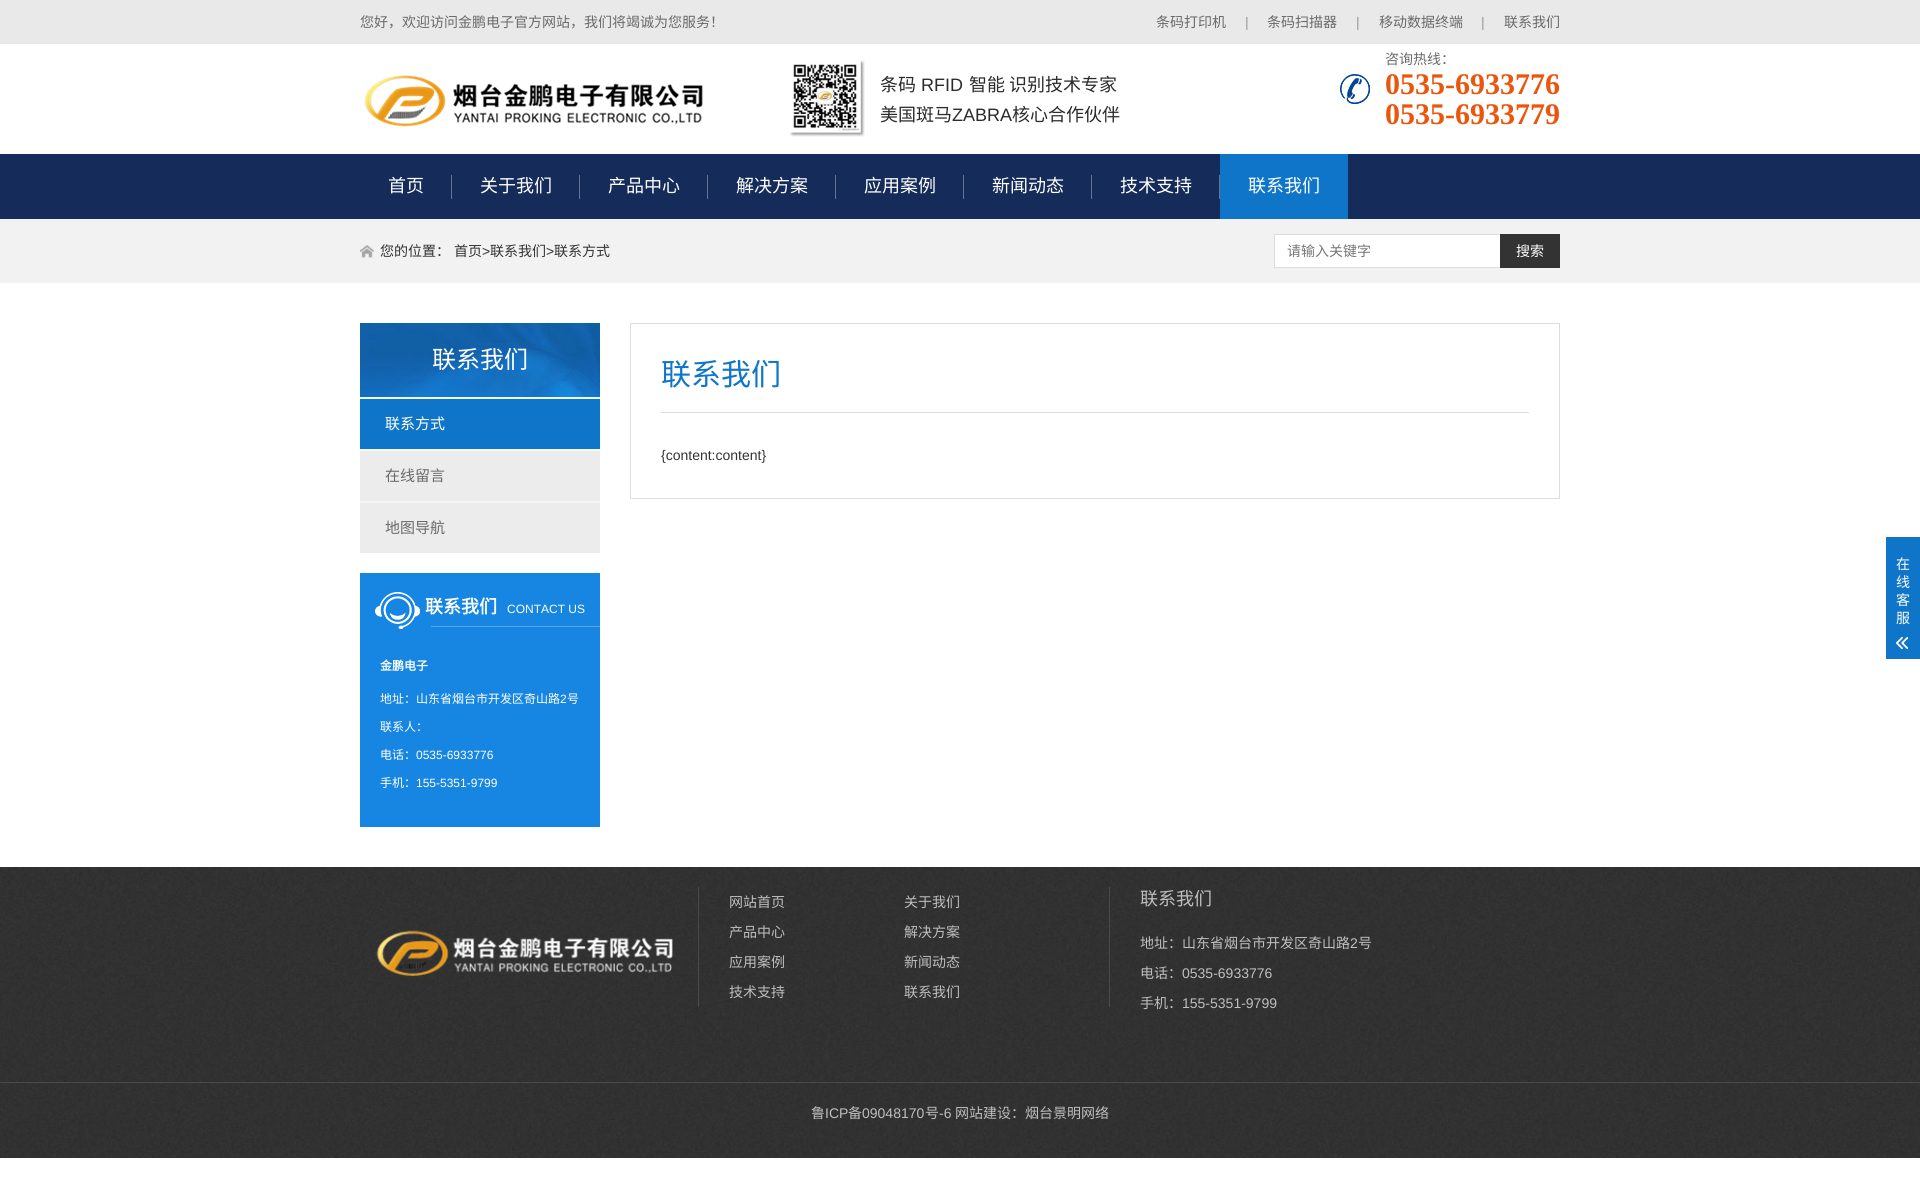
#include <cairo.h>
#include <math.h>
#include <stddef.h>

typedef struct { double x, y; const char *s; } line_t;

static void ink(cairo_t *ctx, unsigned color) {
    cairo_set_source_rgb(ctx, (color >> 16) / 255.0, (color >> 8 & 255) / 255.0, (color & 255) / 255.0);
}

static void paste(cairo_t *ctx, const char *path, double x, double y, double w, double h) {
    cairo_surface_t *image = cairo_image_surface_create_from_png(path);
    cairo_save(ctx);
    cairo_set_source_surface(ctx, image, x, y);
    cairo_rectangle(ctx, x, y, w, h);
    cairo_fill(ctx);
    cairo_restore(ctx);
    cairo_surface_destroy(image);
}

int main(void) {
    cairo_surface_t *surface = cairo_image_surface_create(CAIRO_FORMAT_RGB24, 1920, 1196);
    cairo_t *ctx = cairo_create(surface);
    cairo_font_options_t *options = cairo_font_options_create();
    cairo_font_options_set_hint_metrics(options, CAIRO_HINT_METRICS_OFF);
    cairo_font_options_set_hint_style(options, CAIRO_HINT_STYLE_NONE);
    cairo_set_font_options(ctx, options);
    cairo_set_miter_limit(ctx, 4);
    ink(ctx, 0xFFFFFF);
    cairo_paint(ctx);
    ink(ctx, 0xE9E9E9);
    cairo_rectangle(ctx, 0, 0, 1920, 44);
    cairo_fill(ctx);
    cairo_select_font_face(ctx, "Noto Sans CJK SC", CAIRO_FONT_SLANT_NORMAL, CAIRO_FONT_WEIGHT_NORMAL);
    cairo_set_font_size(ctx, 14);
    ink(ctx, 0x6A6A6A);
    cairo_move_to(ctx, 360, 27);
    cairo_show_text(ctx, "您好，欢迎访问金鹏电子官方网站，我们将竭诚为您服务！");
    cairo_move_to(ctx, 1156, 27);
    cairo_show_text(ctx, "条码打印机");
    cairo_select_font_face(ctx, "Liberation Sans", CAIRO_FONT_SLANT_NORMAL, CAIRO_FONT_WEIGHT_NORMAL);
    ink(ctx, 0x999999);
    cairo_move_to(ctx, 1245, 27);
    cairo_show_text(ctx, "|");
    cairo_select_font_face(ctx, "Noto Sans CJK SC", CAIRO_FONT_SLANT_NORMAL, CAIRO_FONT_WEIGHT_NORMAL);
    ink(ctx, 0x6A6A6A);
    cairo_move_to(ctx, 1267, 27);
    cairo_show_text(ctx, "条码扫描器");
    cairo_select_font_face(ctx, "Liberation Sans", CAIRO_FONT_SLANT_NORMAL, CAIRO_FONT_WEIGHT_NORMAL);
    ink(ctx, 0x999999);
    cairo_move_to(ctx, 1356, 27);
    cairo_show_text(ctx, "|");
    cairo_select_font_face(ctx, "Noto Sans CJK SC", CAIRO_FONT_SLANT_NORMAL, CAIRO_FONT_WEIGHT_NORMAL);
    ink(ctx, 0x6A6A6A);
    cairo_move_to(ctx, 1379, 27);
    cairo_show_text(ctx, "移动数据终端");
    cairo_select_font_face(ctx, "Liberation Sans", CAIRO_FONT_SLANT_NORMAL, CAIRO_FONT_WEIGHT_NORMAL);
    ink(ctx, 0x999999);
    cairo_move_to(ctx, 1481, 27);
    cairo_show_text(ctx, "|");
    cairo_select_font_face(ctx, "Noto Sans CJK SC", CAIRO_FONT_SLANT_NORMAL, CAIRO_FONT_WEIGHT_NORMAL);
    ink(ctx, 0x6A6A6A);
    cairo_move_to(ctx, 1504, 27);
    cairo_show_text(ctx, "联系我们");
    paste(ctx, "media/1.png", 364, 75, 339, 52);
    paste(ctx, "media/2.png", 789, 60, 76, 77);
    cairo_set_font_size(ctx, 18);
    ink(ctx, 0x2B2B2B);
    cairo_move_to(ctx, 880, 91);
    cairo_show_text(ctx, "条码");
    cairo_select_font_face(ctx, "Liberation Sans", CAIRO_FONT_SLANT_NORMAL, CAIRO_FONT_WEIGHT_NORMAL);
    cairo_move_to(ctx, 921, 91);
    cairo_show_text(ctx, "RFID");
    cairo_select_font_face(ctx, "Noto Sans CJK SC", CAIRO_FONT_SLANT_NORMAL, CAIRO_FONT_WEIGHT_NORMAL);
    cairo_move_to(ctx, 969, 91);
    cairo_show_text(ctx, "智能 识别技术专家");
    cairo_move_to(ctx, 880, 121);
    cairo_show_text(ctx, "美国斑马");
    cairo_select_font_face(ctx, "Liberation Sans", CAIRO_FONT_SLANT_NORMAL, CAIRO_FONT_WEIGHT_NORMAL);
    cairo_move_to(ctx, 952, 121);
    cairo_show_text(ctx, "ZABRA");
    cairo_select_font_face(ctx, "Noto Sans CJK SC", CAIRO_FONT_SLANT_NORMAL, CAIRO_FONT_WEIGHT_NORMAL);
    cairo_move_to(ctx, 1012, 121);
    cairo_show_text(ctx, "核心合作伙伴");
    paste(ctx, "media/3.png", 1340, 74, 30, 30);
    cairo_set_font_size(ctx, 14);
    ink(ctx, 0x6A6A6A);
    cairo_move_to(ctx, 1385, 64);
    cairo_show_text(ctx, "咨询热线：");
    cairo_select_font_face(ctx, "Liberation Serif", CAIRO_FONT_SLANT_NORMAL, CAIRO_FONT_WEIGHT_BOLD);
    cairo_set_font_size(ctx, 30);
    ink(ctx, 0xEB560D);
    cairo_move_to(ctx, 1385, 94);
    cairo_show_text(ctx, "0535-6933776");
    cairo_move_to(ctx, 1385, 124);
    cairo_show_text(ctx, "0535-6933779");
    ink(ctx, 0x152B59);
    cairo_rectangle(ctx, 0, 154, 1920, 65);
    cairo_fill(ctx);
    ink(ctx, 0x657391);
    cairo_rectangle(ctx, 451, 175, 1, 24);
    cairo_fill(ctx);
    cairo_select_font_face(ctx, "Noto Sans CJK SC", CAIRO_FONT_SLANT_NORMAL, CAIRO_FONT_WEIGHT_NORMAL);
    cairo_set_font_size(ctx, 18);
    ink(ctx, 0xFFFFFF);
    cairo_move_to(ctx, 388, 192);
    cairo_show_text(ctx, "首页");
    ink(ctx, 0x657391);
    cairo_rectangle(ctx, 579, 175, 1, 24);
    cairo_fill(ctx);
    ink(ctx, 0xFFFFFF);
    cairo_move_to(ctx, 480, 192);
    cairo_show_text(ctx, "关于我们");
    ink(ctx, 0x657391);
    cairo_rectangle(ctx, 707, 175, 1, 24);
    cairo_fill(ctx);
    ink(ctx, 0xFFFFFF);
    cairo_move_to(ctx, 608, 192);
    cairo_show_text(ctx, "产品中心");
    ink(ctx, 0x657391);
    cairo_rectangle(ctx, 835, 175, 1, 24);
    cairo_fill(ctx);
    ink(ctx, 0xFFFFFF);
    cairo_move_to(ctx, 736, 192);
    cairo_show_text(ctx, "解决方案");
    ink(ctx, 0x657391);
    cairo_rectangle(ctx, 963, 175, 1, 24);
    cairo_fill(ctx);
    ink(ctx, 0xFFFFFF);
    cairo_move_to(ctx, 864, 192);
    cairo_show_text(ctx, "应用案例");
    ink(ctx, 0x657391);
    cairo_rectangle(ctx, 1091, 175, 1, 24);
    cairo_fill(ctx);
    ink(ctx, 0xFFFFFF);
    cairo_move_to(ctx, 992, 192);
    cairo_show_text(ctx, "新闻动态");
    ink(ctx, 0x657391);
    cairo_rectangle(ctx, 1219, 175, 1, 24);
    cairo_fill(ctx);
    ink(ctx, 0xFFFFFF);
    cairo_move_to(ctx, 1120, 192);
    cairo_show_text(ctx, "技术支持");
    ink(ctx, 0x0E75C8);
    cairo_rectangle(ctx, 1220, 154, 128, 65);
    cairo_fill(ctx);
    ink(ctx, 0xFFFFFF);
    cairo_move_to(ctx, 1248, 192);
    cairo_show_text(ctx, "联系我们");
    ink(ctx, 0xF2F2F2);
    cairo_rectangle(ctx, 0, 219, 1920, 64);
    cairo_fill(ctx);
    paste(ctx, "media/4.png", 360, 245, 14, 13);
    cairo_set_font_size(ctx, 14);
    ink(ctx, 0x333333);
    cairo_move_to(ctx, 380, 256);
    cairo_show_text(ctx, "您的位置：");
    cairo_move_to(ctx, 454, 256);
    cairo_show_text(ctx, "首页");
    cairo_select_font_face(ctx, "Liberation Sans", CAIRO_FONT_SLANT_NORMAL, CAIRO_FONT_WEIGHT_NORMAL);
    cairo_move_to(ctx, 482, 256);
    cairo_show_text(ctx, ">");
    cairo_select_font_face(ctx, "Noto Sans CJK SC", CAIRO_FONT_SLANT_NORMAL, CAIRO_FONT_WEIGHT_NORMAL);
    cairo_move_to(ctx, 490, 256);
    cairo_show_text(ctx, "联系我们");
    cairo_select_font_face(ctx, "Liberation Sans", CAIRO_FONT_SLANT_NORMAL, CAIRO_FONT_WEIGHT_NORMAL);
    cairo_move_to(ctx, 546, 256);
    cairo_show_text(ctx, ">");
    cairo_select_font_face(ctx, "Noto Sans CJK SC", CAIRO_FONT_SLANT_NORMAL, CAIRO_FONT_WEIGHT_NORMAL);
    cairo_move_to(ctx, 554, 256);
    cairo_show_text(ctx, "联系方式");
    ink(ctx, 0xFFFFFF);
    cairo_rectangle(ctx, 1275, 235, 225, 32);
    cairo_fill(ctx);
    cairo_rectangle(ctx, 1274.5, 234.5, 285, 33);
    ink(ctx, 0xDDDDDD);
    cairo_set_line_width(ctx, 1);
    cairo_stroke(ctx);
    ink(ctx, 0x757575);
    cairo_move_to(ctx, 1287, 256);
    cairo_show_text(ctx, "请输入关键字");
    ink(ctx, 0x333333);
    cairo_rectangle(ctx, 1500, 234, 60, 34);
    cairo_fill(ctx);
    ink(ctx, 0xFFFFFF);
    cairo_move_to(ctx, 1516, 256);
    cairo_show_text(ctx, "搜索");
    ink(ctx, 0xF6F6F6);
    cairo_rectangle(ctx, 360, 397, 240, 106);
    cairo_fill(ctx);
    paste(ctx, "media/5.png", 360, 323, 240, 74);
    cairo_set_font_size(ctx, 24);
    ink(ctx, 0xFFFFFF);
    cairo_move_to(ctx, 432, 368);
    cairo_show_text(ctx, "联系我们");
    ink(ctx, 0x0E75C8);
    cairo_rectangle(ctx, 360, 399, 240, 50);
    cairo_fill(ctx);
    cairo_set_font_size(ctx, 15);
    ink(ctx, 0xFFFFFF);
    cairo_move_to(ctx, 385, 429);
    cairo_show_text(ctx, "联系方式");
    ink(ctx, 0xECECEC);
    cairo_rectangle(ctx, 360, 451, 240, 50);
    cairo_fill(ctx);
    ink(ctx, 0x6A6A6A);
    cairo_move_to(ctx, 385, 481);
    cairo_show_text(ctx, "在线留言");
    ink(ctx, 0xECECEC);
    cairo_rectangle(ctx, 360, 503, 240, 50);
    cairo_fill(ctx);
    ink(ctx, 0x6A6A6A);
    cairo_move_to(ctx, 385, 533);
    cairo_show_text(ctx, "地图导航");
    ink(ctx, 0x1785E2);
    cairo_rectangle(ctx, 360, 573, 240, 254);
    cairo_fill(ctx);
    paste(ctx, "media/6.png", 375, 592, 225, 37);
    cairo_select_font_face(ctx, "Noto Sans CJK SC", CAIRO_FONT_SLANT_NORMAL, CAIRO_FONT_WEIGHT_BOLD);
    cairo_set_font_size(ctx, 18);
    ink(ctx, 0xFFFFFF);
    cairo_move_to(ctx, 425, 613);
    cairo_show_text(ctx, "联系我们");
    cairo_select_font_face(ctx, "Liberation Sans", CAIRO_FONT_SLANT_NORMAL, CAIRO_FONT_WEIGHT_NORMAL);
    cairo_set_font_size(ctx, 12);
    cairo_move_to(ctx, 507, 613);
    cairo_show_text(ctx, "CONTACT US");
    cairo_select_font_face(ctx, "Noto Sans CJK SC", CAIRO_FONT_SLANT_NORMAL, CAIRO_FONT_WEIGHT_BOLD);
    cairo_move_to(ctx, 380, 670);
    cairo_show_text(ctx, "金鹏电子");
    cairo_select_font_face(ctx, "Noto Sans CJK SC", CAIRO_FONT_SLANT_NORMAL, CAIRO_FONT_WEIGHT_NORMAL);
    cairo_move_to(ctx, 380, 703);
    cairo_show_text(ctx, "地址：山东省烟台市开发区奇山路");
    cairo_select_font_face(ctx, "Liberation Sans", CAIRO_FONT_SLANT_NORMAL, CAIRO_FONT_WEIGHT_NORMAL);
    cairo_move_to(ctx, 560, 703);
    cairo_show_text(ctx, "2");
    cairo_select_font_face(ctx, "Noto Sans CJK SC", CAIRO_FONT_SLANT_NORMAL, CAIRO_FONT_WEIGHT_NORMAL);
    {
        static const line_t items[] = {
            {567, 703, "号"},
            {380, 731, "联系人："},
            {380, 759, "电话："},
        };
        for (size_t i = 0; i < sizeof items / sizeof *items; i++) {
            cairo_move_to(ctx, items[i].x, items[i].y);
            cairo_show_text(ctx, items[i].s);
        }
    }
    cairo_select_font_face(ctx, "Liberation Sans", CAIRO_FONT_SLANT_NORMAL, CAIRO_FONT_WEIGHT_NORMAL);
    cairo_move_to(ctx, 416, 759);
    cairo_show_text(ctx, "0535-6933776");
    cairo_select_font_face(ctx, "Noto Sans CJK SC", CAIRO_FONT_SLANT_NORMAL, CAIRO_FONT_WEIGHT_NORMAL);
    cairo_move_to(ctx, 380, 787);
    cairo_show_text(ctx, "手机：");
    cairo_select_font_face(ctx, "Liberation Sans", CAIRO_FONT_SLANT_NORMAL, CAIRO_FONT_WEIGHT_NORMAL);
    cairo_move_to(ctx, 416, 787);
    cairo_show_text(ctx, "155-5351-9799");
    cairo_rectangle(ctx, 630.5, 323.5, 929, 175);
    ink(ctx, 0xDDDDDD);
    cairo_stroke(ctx);
    cairo_rectangle(ctx, 661, 412, 868, 1);
    cairo_fill(ctx);
    cairo_select_font_face(ctx, "Noto Sans CJK SC", CAIRO_FONT_SLANT_NORMAL, CAIRO_FONT_WEIGHT_NORMAL);
    cairo_set_font_size(ctx, 30);
    ink(ctx, 0x0E75C8);
    cairo_move_to(ctx, 661, 385);
    cairo_show_text(ctx, "联系我们");
    cairo_select_font_face(ctx, "Liberation Sans", CAIRO_FONT_SLANT_NORMAL, CAIRO_FONT_WEIGHT_NORMAL);
    cairo_set_font_size(ctx, 14);
    ink(ctx, 0x333333);
    cairo_move_to(ctx, 661, 460);
    cairo_show_text(ctx, "{content:content}");
    ink(ctx, 0x0E75C8);
    cairo_rectangle(ctx, 1886, 537, 34, 122);
    cairo_fill(ctx);
    cairo_select_font_face(ctx, "Noto Sans CJK SC", CAIRO_FONT_SLANT_NORMAL, CAIRO_FONT_WEIGHT_NORMAL);
    ink(ctx, 0xFFFFFF);
    {
        static const line_t items[] = {
            {1896, 569, "在"},
            {1896, 587, "线"},
            {1896, 605, "客"},
            {1896, 623, "服"},
        };
        for (size_t i = 0; i < sizeof items / sizeof *items; i++) {
            cairo_move_to(ctx, items[i].x, items[i].y);
            cairo_show_text(ctx, items[i].s);
        }
    }
    paste(ctx, "media/7.png", 1896, 637, 12, 12);
    paste(ctx, "media/8.png", 0, 867, 1920, 291);
    paste(ctx, "media/9.png", 376, 930, 297, 47);
    ink(ctx, 0x4A4A4A);
    cairo_rectangle(ctx, 1109, 887, 1, 120);
    cairo_fill(ctx);
    cairo_rectangle(ctx, 698, 887, 1, 120);
    cairo_fill(ctx);
    ink(ctx, 0xBEBEBE);
    {
        static const line_t items[] = {
            {729, 907, "网站首页"},
            {904, 907, "关于我们"},
            {729, 937, "产品中心"},
            {904, 937, "解决方案"},
            {729, 967, "应用案例"},
            {904, 967, "新闻动态"},
            {729, 997, "技术支持"},
            {904, 997, "联系我们"},
        };
        for (size_t i = 0; i < sizeof items / sizeof *items; i++) {
            cairo_move_to(ctx, items[i].x, items[i].y);
            cairo_show_text(ctx, items[i].s);
        }
    }
    cairo_set_font_size(ctx, 18);
    cairo_move_to(ctx, 1140, 905);
    cairo_show_text(ctx, "联系我们");
    cairo_set_font_size(ctx, 14);
    cairo_move_to(ctx, 1140, 948);
    cairo_show_text(ctx, "地址：山东省烟台市开发区奇山路");
    cairo_select_font_face(ctx, "Liberation Sans", CAIRO_FONT_SLANT_NORMAL, CAIRO_FONT_WEIGHT_NORMAL);
    cairo_move_to(ctx, 1350, 948);
    cairo_show_text(ctx, "2");
    cairo_select_font_face(ctx, "Noto Sans CJK SC", CAIRO_FONT_SLANT_NORMAL, CAIRO_FONT_WEIGHT_NORMAL);
    cairo_move_to(ctx, 1358, 948);
    cairo_show_text(ctx, "号");
    cairo_move_to(ctx, 1140, 978);
    cairo_show_text(ctx, "电话：");
    cairo_select_font_face(ctx, "Liberation Sans", CAIRO_FONT_SLANT_NORMAL, CAIRO_FONT_WEIGHT_NORMAL);
    cairo_move_to(ctx, 1182, 978);
    cairo_show_text(ctx, "0535-6933776");
    cairo_select_font_face(ctx, "Noto Sans CJK SC", CAIRO_FONT_SLANT_NORMAL, CAIRO_FONT_WEIGHT_NORMAL);
    cairo_move_to(ctx, 1140, 1008);
    cairo_show_text(ctx, "手机：");
    cairo_select_font_face(ctx, "Liberation Sans", CAIRO_FONT_SLANT_NORMAL, CAIRO_FONT_WEIGHT_NORMAL);
    cairo_move_to(ctx, 1182, 1008);
    cairo_show_text(ctx, "155-5351-9799");
    ink(ctx, 0x494949);
    cairo_rectangle(ctx, 0, 1082, 1920, 1);
    cairo_fill(ctx);
    cairo_select_font_face(ctx, "Noto Sans CJK SC", CAIRO_FONT_SLANT_NORMAL, CAIRO_FONT_WEIGHT_NORMAL);
    ink(ctx, 0xBEBEBE);
    cairo_move_to(ctx, 811, 1118);
    cairo_show_text(ctx, "鲁");
    cairo_select_font_face(ctx, "Liberation Sans", CAIRO_FONT_SLANT_NORMAL, CAIRO_FONT_WEIGHT_NORMAL);
    cairo_move_to(ctx, 825, 1118);
    cairo_show_text(ctx, "ICP");
    cairo_select_font_face(ctx, "Noto Sans CJK SC", CAIRO_FONT_SLANT_NORMAL, CAIRO_FONT_WEIGHT_NORMAL);
    cairo_move_to(ctx, 848, 1118);
    cairo_show_text(ctx, "备");
    cairo_select_font_face(ctx, "Liberation Sans", CAIRO_FONT_SLANT_NORMAL, CAIRO_FONT_WEIGHT_NORMAL);
    cairo_move_to(ctx, 862, 1118);
    cairo_show_text(ctx, "09048170");
    cairo_select_font_face(ctx, "Noto Sans CJK SC", CAIRO_FONT_SLANT_NORMAL, CAIRO_FONT_WEIGHT_NORMAL);
    cairo_move_to(ctx, 925, 1118);
    cairo_show_text(ctx, "号");
    cairo_select_font_face(ctx, "Liberation Sans", CAIRO_FONT_SLANT_NORMAL, CAIRO_FONT_WEIGHT_NORMAL);
    cairo_move_to(ctx, 939, 1118);
    cairo_show_text(ctx, "-6");
    cairo_select_font_face(ctx, "Noto Sans CJK SC", CAIRO_FONT_SLANT_NORMAL, CAIRO_FONT_WEIGHT_NORMAL);
    cairo_move_to(ctx, 955, 1118);
    cairo_show_text(ctx, "网站建设：烟台景明网络");
    cairo_surface_write_to_png(surface, "image.png");
    cairo_font_options_destroy(options);
    cairo_destroy(ctx);
    cairo_surface_destroy(surface);
    return 0;
}
